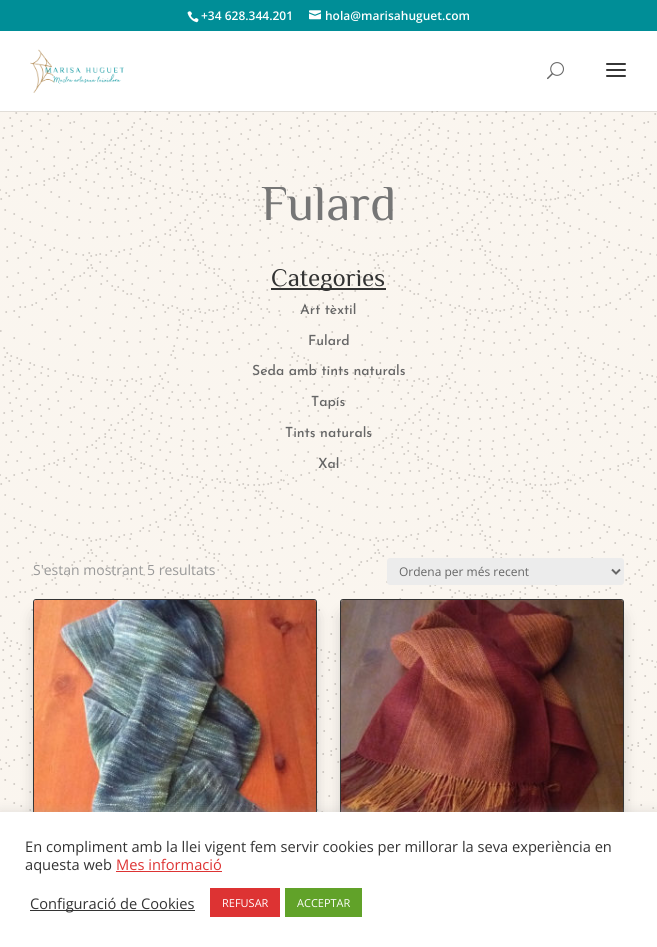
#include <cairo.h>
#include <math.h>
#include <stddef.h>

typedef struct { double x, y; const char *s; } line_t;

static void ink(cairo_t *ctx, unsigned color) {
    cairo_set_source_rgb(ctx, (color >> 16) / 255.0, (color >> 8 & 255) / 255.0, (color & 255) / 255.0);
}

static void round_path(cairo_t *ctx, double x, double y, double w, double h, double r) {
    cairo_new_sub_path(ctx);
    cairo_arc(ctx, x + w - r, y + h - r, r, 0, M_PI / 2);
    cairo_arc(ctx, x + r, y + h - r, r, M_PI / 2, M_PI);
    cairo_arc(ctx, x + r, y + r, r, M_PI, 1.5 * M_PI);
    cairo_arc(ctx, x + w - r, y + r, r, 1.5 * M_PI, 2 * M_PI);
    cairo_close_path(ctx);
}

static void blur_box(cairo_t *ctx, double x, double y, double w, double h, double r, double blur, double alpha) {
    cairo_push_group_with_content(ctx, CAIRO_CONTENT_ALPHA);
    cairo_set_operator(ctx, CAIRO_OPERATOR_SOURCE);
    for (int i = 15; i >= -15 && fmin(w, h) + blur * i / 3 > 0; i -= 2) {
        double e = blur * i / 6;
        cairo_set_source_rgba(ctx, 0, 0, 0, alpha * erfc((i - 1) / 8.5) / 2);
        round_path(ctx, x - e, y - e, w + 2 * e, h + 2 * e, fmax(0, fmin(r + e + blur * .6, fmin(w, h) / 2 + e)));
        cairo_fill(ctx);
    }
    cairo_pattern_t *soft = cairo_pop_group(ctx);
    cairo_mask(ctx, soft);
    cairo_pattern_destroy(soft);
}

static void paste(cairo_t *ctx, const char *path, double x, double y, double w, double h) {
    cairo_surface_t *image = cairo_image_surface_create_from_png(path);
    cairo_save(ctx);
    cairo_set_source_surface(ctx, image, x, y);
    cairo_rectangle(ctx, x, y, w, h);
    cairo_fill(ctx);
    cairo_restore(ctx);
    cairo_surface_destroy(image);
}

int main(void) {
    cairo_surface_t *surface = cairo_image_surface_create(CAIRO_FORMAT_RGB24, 657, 947);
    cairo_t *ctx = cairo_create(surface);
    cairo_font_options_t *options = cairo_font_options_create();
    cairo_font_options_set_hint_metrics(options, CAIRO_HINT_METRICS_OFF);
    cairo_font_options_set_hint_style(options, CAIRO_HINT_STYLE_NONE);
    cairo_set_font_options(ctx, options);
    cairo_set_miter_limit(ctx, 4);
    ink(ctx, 0xFFFFFF);
    cairo_paint(ctx);
    ink(ctx, 0x008E97);
    cairo_rectangle(ctx, 0, 0, 657, 31);
    cairo_fill(ctx);
    paste(ctx, "media/1.png", 187, 11, 12, 12);
    cairo_select_font_face(ctx, "Open Sans SemiBold", CAIRO_FONT_SLANT_NORMAL, CAIRO_FONT_WEIGHT_NORMAL);
    cairo_set_font_size(ctx, 12);
    ink(ctx, 0xFFFFFF);
    cairo_move_to(ctx, 201, 20);
    cairo_show_text(ctx, "+34 628.344.201");
    paste(ctx, "media/2.png", 309, 10, 12, 10);
    cairo_move_to(ctx, 325, 20);
    cairo_show_text(ctx, "hola@marisahuguet.com");
    paste(ctx, "media/6.png", 0, 111, 657, 701);
    cairo_set_source_rgba(ctx, 0, 0, 0, 0.1);
    cairo_rectangle(ctx, 0, 111, 657, 1);
    cairo_fill(ctx);
    paste(ctx, "media/3.png", 30, 49, 94, 44);
    paste(ctx, "media/4.png", 547, 62, 17, 18);
    paste(ctx, "media/5.png", 606, 63, 20, 14);
    cairo_select_font_face(ctx, "ZCOOL XiaoWei", CAIRO_FONT_SLANT_NORMAL, CAIRO_FONT_WEIGHT_NORMAL);
    cairo_set_font_size(ctx, 50);
    ink(ctx, 0x767676);
    cairo_move_to(ctx, 261, 220);
    cairo_show_text(ctx, "Fulard");
    ink(ctx, 0x333333);
    cairo_rectangle(ctx, 271, 288, 115, 2);
    cairo_fill(ctx);
    cairo_set_font_size(ctx, 25);
    cairo_move_to(ctx, 271, 286);
    cairo_show_text(ctx, "Categories");
    cairo_select_font_face(ctx, "Josefin Sans Thin", CAIRO_FONT_SLANT_NORMAL, CAIRO_FONT_WEIGHT_NORMAL);
    cairo_set_font_size(ctx, 14);
    ink(ctx, 0x666666);
    {
        static const line_t items[] = {
            {300, 314, "Art tèxtil"},
            {308, 345, "Fulard"},
            {252, 375, "Seda amb tints naturals"},
            {311, 406, "Tapís"},
            {285, 437, "Tints naturals"},
            {318, 468, "Xal"},
        };
        for (size_t i = 0; i < sizeof items / sizeof *items; i++) {
            cairo_move_to(ctx, items[i].x, items[i].y);
            cairo_show_text(ctx, items[i].s);
        }
    }
    cairo_select_font_face(ctx, "Open Sans", CAIRO_FONT_SLANT_NORMAL, CAIRO_FONT_WEIGHT_NORMAL);
    ink(ctx, 0x999999);
    cairo_move_to(ctx, 33, 575);
    cairo_show_text(ctx, "S'estan mostrant 5 resultats");
    ink(ctx, 0xECECEC);
    round_path(ctx, 387, 558, 237, 27, 3);
    cairo_fill(ctx);
    cairo_new_path(ctx);
    cairo_move_to(ctx, 612, 569.5);
    cairo_line_to(ctx, 616, 573.5);
    cairo_line_to(ctx, 620, 569.5);
    ink(ctx, 0x666666);
    cairo_stroke(ctx);
    cairo_set_font_size(ctx, 12);
    cairo_move_to(ctx, 399, 576);
    cairo_show_text(ctx, "Ordena per més recent");
    ink(ctx, 0x000000);
    blur_box(ctx, 39, 617, 272, 272, 0, 9, 0.3);
    round_path(ctx, 33.5, 599.5, 283, 283, 2.5);
    ink(ctx, 0x333333);
    cairo_set_line_width(ctx, 1);
    cairo_stroke(ctx);
    paste(ctx, "media/7.png", 34, 600, 282, 212);
    ink(ctx, 0x000000);
    blur_box(ctx, 346, 617, 272, 272, 0, 9, 0.3);
    round_path(ctx, 340.5, 599.5, 283, 283, 2.5);
    ink(ctx, 0x333333);
    cairo_stroke(ctx);
    paste(ctx, "media/8.png", 341, 600, 282, 212);
    ink(ctx, 0xACABAB);
    blur_box(ctx, 0, 811, 657, 135, 0, 5, 0.3);
    ink(ctx, 0xFFFFFF);
    cairo_rectangle(ctx, 0, 812, 657, 135);
    cairo_fill(ctx);
    cairo_set_font_size(ctx, 14.65);
    ink(ctx, 0x333333);
    cairo_move_to(ctx, 25, 852);
    cairo_show_text(ctx, "En compliment amb la llei vigent fem servir cookies per millorar la seva experiència en");
    cairo_move_to(ctx, 25, 870);
    cairo_show_text(ctx, "aquesta web");
    ink(ctx, 0xDD3333);
    cairo_move_to(ctx, 116, 870);
    cairo_show_text(ctx, "Mes informació");
    cairo_rectangle(ctx, 116, 871, 106, 1);
    cairo_fill(ctx);
    ink(ctx, 0x333333);
    cairo_rectangle(ctx, 30, 910, 165, 1);
    cairo_fill(ctx);
    cairo_move_to(ctx, 30, 909);
    cairo_show_text(ctx, "Configuració de Cookies");
    ink(ctx, 0xDD3333);
    cairo_rectangle(ctx, 210, 888, 70, 29);
    cairo_fill(ctx);
    cairo_set_font_size(ctx, 11);
    ink(ctx, 0xFFFFFF);
    cairo_move_to(ctx, 222, 907);
    cairo_show_text(ctx, "REFUSAR");
    ink(ctx, 0x61A229);
    cairo_rectangle(ctx, 285, 888, 77, 29);
    cairo_fill(ctx);
    ink(ctx, 0xFFFFFF);
    cairo_move_to(ctx, 297, 907);
    cairo_show_text(ctx, "ACCEPTAR");
    cairo_surface_write_to_png(surface, "image.png");
    cairo_font_options_destroy(options);
    cairo_destroy(ctx);
    cairo_surface_destroy(surface);
    return 0;
}
